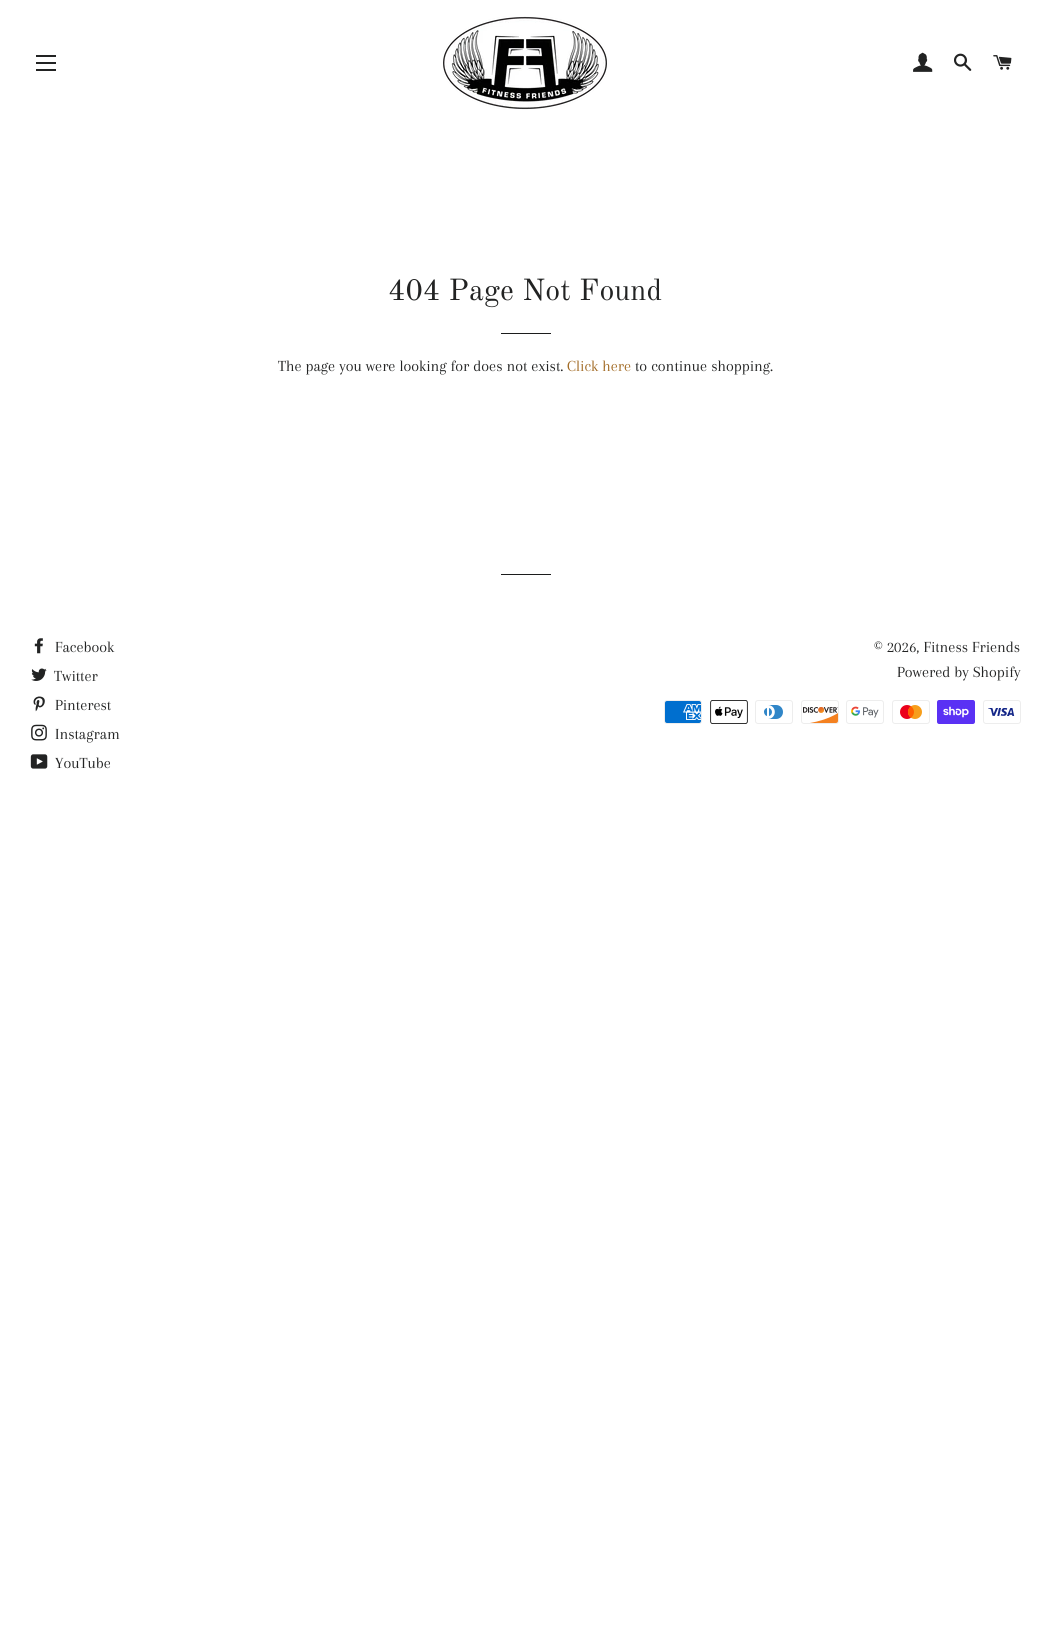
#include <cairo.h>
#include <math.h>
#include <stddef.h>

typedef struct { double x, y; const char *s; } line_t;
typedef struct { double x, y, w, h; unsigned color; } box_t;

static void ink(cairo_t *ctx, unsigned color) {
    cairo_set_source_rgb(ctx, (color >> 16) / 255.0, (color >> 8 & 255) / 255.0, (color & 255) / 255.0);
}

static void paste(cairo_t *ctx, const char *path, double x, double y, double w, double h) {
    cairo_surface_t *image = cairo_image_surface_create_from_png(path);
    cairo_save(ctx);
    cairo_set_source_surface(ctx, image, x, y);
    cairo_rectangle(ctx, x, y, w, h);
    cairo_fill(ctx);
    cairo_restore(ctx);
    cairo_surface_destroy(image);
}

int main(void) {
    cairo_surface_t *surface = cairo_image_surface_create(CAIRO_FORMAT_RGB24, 1051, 1646);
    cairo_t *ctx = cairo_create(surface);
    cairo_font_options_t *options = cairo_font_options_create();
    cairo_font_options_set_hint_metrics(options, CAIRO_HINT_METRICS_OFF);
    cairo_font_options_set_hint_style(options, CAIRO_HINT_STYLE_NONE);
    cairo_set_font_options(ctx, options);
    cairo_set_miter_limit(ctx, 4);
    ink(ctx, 0xFFFFFF);
    cairo_paint(ctx);
    {
        static const box_t items[] = {
            {36, 55, 20, 2, 0x222323},
            {36, 62, 20, 2, 0x222323},
            {36, 69, 20, 2, 0x222323},
        };
        for (size_t i = 0; i < sizeof items / sizeof *items; i++) {
            ink(ctx, items[i].color);
            cairo_rectangle(ctx, items[i].x, items[i].y, items[i].w, items[i].h);
            cairo_fill(ctx);
        }
    }
    paste(ctx, "media/1.png", 443, 16, 164, 94);
    paste(ctx, "media/2.png", 913, 52, 20, 20);
    paste(ctx, "media/3.png", 954, 53, 18, 18);
    paste(ctx, "media/4.png", 993, 55, 19, 15);
    cairo_select_font_face(ctx, "Old Standard TT", CAIRO_FONT_SLANT_NORMAL, CAIRO_FONT_WEIGHT_NORMAL);
    cairo_set_font_size(ctx, 30);
    cairo_move_to(ctx, 388, 300);
    cairo_show_text(ctx, "404 Page Not Found");
    ink(ctx, 0x1C1D1D);
    cairo_rectangle(ctx, 501, 333, 50, 1);
    cairo_fill(ctx);
    cairo_select_font_face(ctx, "Arapey", CAIRO_FONT_SLANT_NORMAL, CAIRO_FONT_WEIGHT_NORMAL);
    cairo_set_font_size(ctx, 16);
    ink(ctx, 0x222323);
    cairo_move_to(ctx, 278, 371);
    cairo_show_text(ctx, "The page you were looking for does not exist.");
    ink(ctx, 0xA26B25);
    cairo_move_to(ctx, 567, 371);
    cairo_show_text(ctx, "Click here");
    ink(ctx, 0x222323);
    cairo_move_to(ctx, 635, 371);
    cairo_show_text(ctx, "to continue shopping.");
    ink(ctx, 0x1C1D1D);
    cairo_rectangle(ctx, 501, 574, 50, 1);
    cairo_fill(ctx);
    paste(ctx, "media/5.png", 34, 638, 9, 16);
    ink(ctx, 0x222323);
    cairo_move_to(ctx, 55, 652);
    cairo_show_text(ctx, "Facebook");
    paste(ctx, "media/6.png", 31, 668, 16, 13);
    cairo_move_to(ctx, 54, 681);
    cairo_show_text(ctx, "Twitter");
    paste(ctx, "media/7.png", 33, 696, 12, 16);
    cairo_move_to(ctx, 55, 710);
    cairo_show_text(ctx, "Pinterest");
    paste(ctx, "media/8.png", 31, 724, 16, 17);
    cairo_move_to(ctx, 55, 739);
    cairo_show_text(ctx, "Instagram");
    paste(ctx, "media/9.png", 30, 754, 18, 15);
    {
        static const line_t items[] = {
            {55, 768, "YouTube"},
            {874, 652, "© 2026, Fitness Friends"},
            {897, 677, "Powered by Shopify"},
        };
        for (size_t i = 0; i < sizeof items / sizeof *items; i++) {
            cairo_move_to(ctx, items[i].x, items[i].y);
            cairo_show_text(ctx, items[i].s);
        }
    }
    paste(ctx, "media/10.png", 664, 700, 38, 24);
    paste(ctx, "media/11.png", 710, 700, 38, 24);
    paste(ctx, "media/12.png", 755, 700, 38, 24);
    paste(ctx, "media/13.png", 801, 700, 38, 24);
    paste(ctx, "media/14.png", 846, 700, 38, 24);
    paste(ctx, "media/15.png", 892, 700, 38, 24);
    paste(ctx, "media/16.png", 937, 700, 38, 24);
    paste(ctx, "media/17.png", 983, 700, 38, 24);
    cairo_surface_write_to_png(surface, "image.png");
    cairo_font_options_destroy(options);
    cairo_destroy(ctx);
    cairo_surface_destroy(surface);
    return 0;
}
